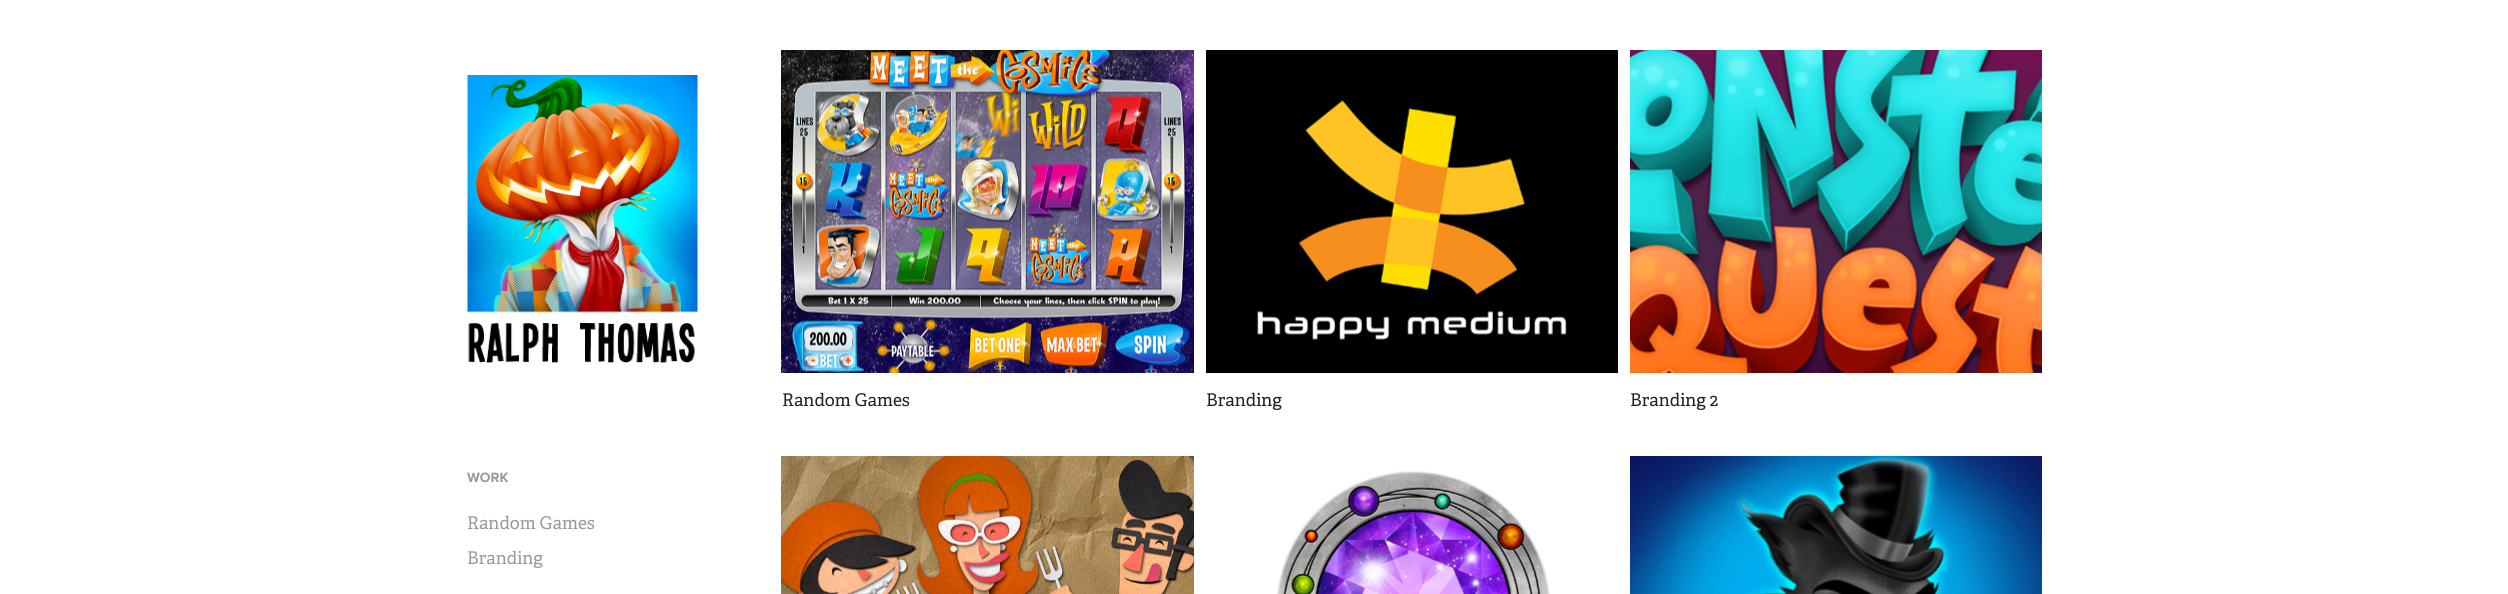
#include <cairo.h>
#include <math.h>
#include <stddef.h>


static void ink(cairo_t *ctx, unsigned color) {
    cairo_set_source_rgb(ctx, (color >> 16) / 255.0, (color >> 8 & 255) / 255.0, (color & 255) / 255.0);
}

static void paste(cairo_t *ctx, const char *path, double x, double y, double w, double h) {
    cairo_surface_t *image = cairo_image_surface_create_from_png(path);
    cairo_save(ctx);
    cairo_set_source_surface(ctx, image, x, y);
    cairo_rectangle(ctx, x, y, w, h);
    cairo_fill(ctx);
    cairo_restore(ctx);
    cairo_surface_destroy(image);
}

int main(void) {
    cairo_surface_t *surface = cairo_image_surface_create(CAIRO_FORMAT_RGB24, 2508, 594);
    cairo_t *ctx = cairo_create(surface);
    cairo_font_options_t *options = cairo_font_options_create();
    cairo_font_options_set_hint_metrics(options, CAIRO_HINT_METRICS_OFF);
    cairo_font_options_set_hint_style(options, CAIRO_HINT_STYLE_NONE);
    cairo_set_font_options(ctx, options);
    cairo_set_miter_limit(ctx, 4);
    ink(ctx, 0xFFFFFF);
    cairo_paint(ctx);
    paste(ctx, "media/1.png", 781, 50, 413, 323);
    cairo_select_font_face(ctx, "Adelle", CAIRO_FONT_SLANT_NORMAL, CAIRO_FONT_WEIGHT_NORMAL);
    cairo_set_font_size(ctx, 17.5);
    ink(ctx, 0x222222);
    cairo_move_to(ctx, 782, 406);
    cairo_show_text(ctx, "Random Games");
    paste(ctx, "media/2.png", 1206, 50, 412, 323);
    cairo_move_to(ctx, 1206, 406);
    cairo_show_text(ctx, "Branding");
    paste(ctx, "media/3.png", 1630, 50, 412, 323);
    cairo_move_to(ctx, 1630, 406);
    cairo_show_text(ctx, "Branding 2");
    paste(ctx, "media/4.png", 781, 456, 413, 138);
    paste(ctx, "media/5.png", 1277, 471, 273, 123);
    paste(ctx, "media/6.png", 1630, 456, 412, 138);
    paste(ctx, "media/7.png", 467, 75, 231, 288);
    cairo_select_font_face(ctx, "Proxima Nova", CAIRO_FONT_SLANT_NORMAL, CAIRO_FONT_WEIGHT_BOLD);
    cairo_set_font_size(ctx, 14);
    ink(ctx, 0x999999);
    cairo_move_to(ctx, 467, 482);
    cairo_show_text(ctx, "WORK");
    cairo_select_font_face(ctx, "Adelle", CAIRO_FONT_SLANT_NORMAL, CAIRO_FONT_WEIGHT_NORMAL);
    cairo_set_font_size(ctx, 17.5);
    cairo_move_to(ctx, 467, 529);
    cairo_show_text(ctx, "Random Games");
    cairo_move_to(ctx, 467, 564);
    cairo_show_text(ctx, "Branding");
    cairo_surface_write_to_png(surface, "image.png");
    cairo_font_options_destroy(options);
    cairo_destroy(ctx);
    cairo_surface_destroy(surface);
    return 0;
}
